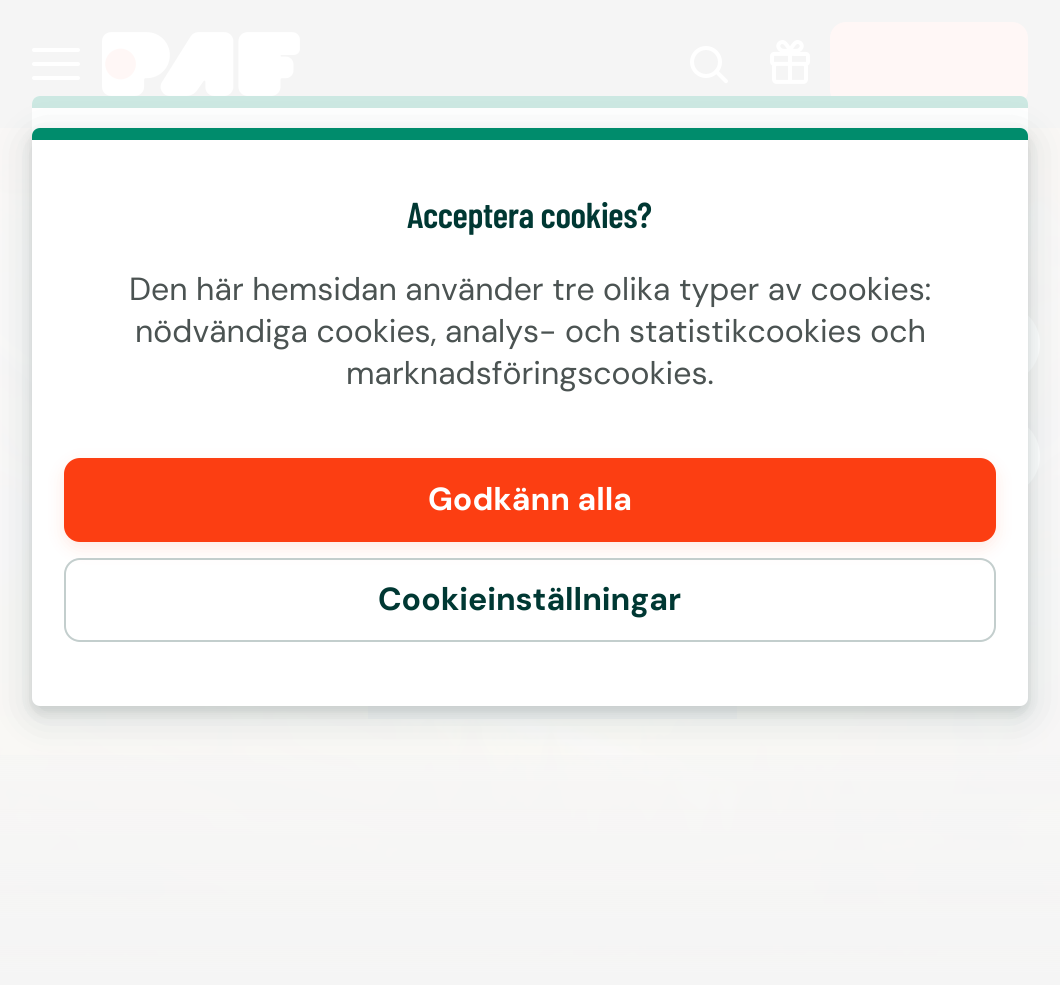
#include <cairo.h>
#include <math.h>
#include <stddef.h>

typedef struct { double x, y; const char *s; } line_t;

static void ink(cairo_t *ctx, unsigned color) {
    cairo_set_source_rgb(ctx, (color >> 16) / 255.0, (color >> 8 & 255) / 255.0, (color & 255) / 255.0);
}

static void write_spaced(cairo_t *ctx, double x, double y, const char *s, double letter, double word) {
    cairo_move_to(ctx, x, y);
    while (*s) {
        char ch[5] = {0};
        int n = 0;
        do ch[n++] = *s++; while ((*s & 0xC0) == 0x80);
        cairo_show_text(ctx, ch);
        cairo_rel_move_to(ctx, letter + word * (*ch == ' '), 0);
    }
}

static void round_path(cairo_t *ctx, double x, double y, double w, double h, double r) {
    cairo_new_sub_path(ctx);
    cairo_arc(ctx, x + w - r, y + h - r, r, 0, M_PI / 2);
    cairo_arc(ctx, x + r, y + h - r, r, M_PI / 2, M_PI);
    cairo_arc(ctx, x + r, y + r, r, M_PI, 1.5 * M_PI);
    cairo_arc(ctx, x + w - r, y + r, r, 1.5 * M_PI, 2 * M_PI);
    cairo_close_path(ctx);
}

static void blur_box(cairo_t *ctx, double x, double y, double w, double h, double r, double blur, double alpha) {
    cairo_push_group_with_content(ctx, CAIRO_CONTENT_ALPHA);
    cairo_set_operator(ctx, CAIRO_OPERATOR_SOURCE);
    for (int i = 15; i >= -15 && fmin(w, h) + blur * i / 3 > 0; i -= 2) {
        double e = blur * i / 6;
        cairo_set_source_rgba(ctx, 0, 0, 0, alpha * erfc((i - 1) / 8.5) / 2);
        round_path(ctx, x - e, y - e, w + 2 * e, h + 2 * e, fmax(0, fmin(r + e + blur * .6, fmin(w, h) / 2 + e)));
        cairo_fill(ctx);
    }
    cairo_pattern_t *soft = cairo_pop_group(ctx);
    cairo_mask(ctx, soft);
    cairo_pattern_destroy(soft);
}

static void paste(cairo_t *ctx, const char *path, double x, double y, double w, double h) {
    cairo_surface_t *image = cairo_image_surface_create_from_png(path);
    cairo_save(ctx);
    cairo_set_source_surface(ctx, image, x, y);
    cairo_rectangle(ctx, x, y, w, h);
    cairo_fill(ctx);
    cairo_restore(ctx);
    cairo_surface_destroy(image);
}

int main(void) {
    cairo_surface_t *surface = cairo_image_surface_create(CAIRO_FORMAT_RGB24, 1060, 985);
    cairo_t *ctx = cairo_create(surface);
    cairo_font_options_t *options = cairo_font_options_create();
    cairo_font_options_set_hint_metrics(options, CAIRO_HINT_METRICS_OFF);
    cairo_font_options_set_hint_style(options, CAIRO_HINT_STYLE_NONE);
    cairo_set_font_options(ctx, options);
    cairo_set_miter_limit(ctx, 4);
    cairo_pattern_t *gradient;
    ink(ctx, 0xF5F5F5);
    cairo_paint(ctx);
    ink(ctx, 0xFFFFFF);
    round_path(ctx, 32, 48, 48, 4, 2);
    cairo_fill(ctx);
    round_path(ctx, 32, 62, 48, 4, 2);
    cairo_fill(ctx);
    round_path(ctx, 32, 76, 48, 4, 2);
    cairo_fill(ctx);
    paste(ctx, "media/1.png", 102, 32, 198, 64);
    paste(ctx, "media/2.png", 690, 46, 38, 38);
    paste(ctx, "media/3.png", 770, 40, 40, 44);
    ink(ctx, 0xFFF7F6);
    round_path(ctx, 830, 22, 198, 84, 16);
    cairo_fill(ctx);
    paste(ctx, "media/4.png", 0, 128, 1060, 855);
    gradient = cairo_pattern_create_linear(530, 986, 530, 494);
    cairo_pattern_add_color_stop_rgba(gradient, 0, 0.961, 0.961, 0.961, 1);
    cairo_pattern_add_color_stop_rgba(gradient, 1, 0.961, 0.961, 0.961, 0);
    cairo_set_source(ctx, gradient);
    cairo_pattern_destroy(gradient);
    cairo_rectangle(ctx, 0, 755, 1060, 228);
    cairo_fill(ctx);
    ink(ctx, 0xFFFFFF);
    cairo_arc(ctx, 1000, 344, 40, 0, 2 * M_PI);
    cairo_fill(ctx);
    cairo_arc(ctx, 1000, 456, 40, 0, 2 * M_PI);
    cairo_fill(ctx);
    ink(ctx, 0xF5F5F5);
    cairo_rectangle(ctx, 368, 706, 369, 13);
    cairo_fill(ctx);
    ink(ctx, 0xFFFFFF);
    round_path(ctx, 32, 96, 996, 434, 8);
    cairo_fill(ctx);
    ink(ctx, 0xCCE8E2);
    cairo_new_path(ctx);
    cairo_move_to(ctx, 40, 96);
    cairo_line_to(ctx, 1020, 96);
    cairo_curve_to(ctx, 1024.5, 96, 1028, 99.5, 1028, 104);
    cairo_line_to(ctx, 1028, 108);
    cairo_line_to(ctx, 32, 108);
    cairo_line_to(ctx, 32, 104);
    cairo_curve_to(ctx, 32, 99.5, 35.5, 96, 40, 96);
    cairo_close_path(ctx);
    cairo_fill(ctx);
    ink(ctx, 0x000000);
    blur_box(ctx, 32, 134, 996, 578, 8, 6, 0.1);
    ink(ctx, 0x003833);
    blur_box(ctx, 32, 138, 996, 578, 8, 20, 0.15);
    ink(ctx, 0xFFFFFF);
    round_path(ctx, 32, 128, 996, 578, 8);
    cairo_fill(ctx);
    ink(ctx, 0x008C6C);
    cairo_new_path(ctx);
    cairo_move_to(ctx, 40, 128);
    cairo_line_to(ctx, 1020, 128);
    cairo_curve_to(ctx, 1024.5, 128, 1028, 131.5, 1028, 136);
    cairo_line_to(ctx, 1028, 140);
    cairo_line_to(ctx, 32, 140);
    cairo_line_to(ctx, 32, 136);
    cairo_curve_to(ctx, 32, 131.5, 35.5, 128, 40, 128);
    cairo_close_path(ctx);
    cairo_fill(ctx);
    cairo_select_font_face(ctx, "Barlow Condensed SemiBold", CAIRO_FONT_SLANT_NORMAL, CAIRO_FONT_WEIGHT_NORMAL);
    cairo_set_font_size(ctx, 36);
    ink(ctx, 0x003833);
    write_spaced(ctx, 407, 228, "Acceptera cookies?", -0.4, 0);
    cairo_select_font_face(ctx, "DM Sans", CAIRO_FONT_SLANT_NORMAL, CAIRO_FONT_WEIGHT_NORMAL);
    cairo_set_font_size(ctx, 32);
    ink(ctx, 0x4B5352);
    {
        static const line_t items[] = {
            {129, 300, "Den här hemsidan använder tre olika typer av cookies:"},
            {135, 342, "nödvändiga cookies, analys- och statistikcookies och"},
            {346, 384, "marknadsföringscookies."},
        };
        for (size_t i = 0; i < sizeof items / sizeof *items; i++) {
            cairo_move_to(ctx, items[i].x, items[i].y);
            cairo_show_text(ctx, items[i].s);
        }
    }
    ink(ctx, 0xFC3E12);
    blur_box(ctx, 64, 464, 932, 84, 16, 9, 0.12);
    ink(ctx, 0xFC3E12);
    round_path(ctx, 64, 458, 932, 84, 16);
    cairo_fill(ctx);
    cairo_select_font_face(ctx, "DM Sans", CAIRO_FONT_SLANT_NORMAL, CAIRO_FONT_WEIGHT_BOLD);
    ink(ctx, 0xFFFFFF);
    cairo_move_to(ctx, 428, 510);
    cairo_show_text(ctx, "Godkänn alla");
    round_path(ctx, 65, 559, 930, 82, 15);
    ink(ctx, 0xC3CECD);
    cairo_stroke(ctx);
    ink(ctx, 0x003833);
    cairo_move_to(ctx, 378, 610);
    cairo_show_text(ctx, "Cookieinställningar");
    cairo_surface_write_to_png(surface, "image.png");
    cairo_font_options_destroy(options);
    cairo_destroy(ctx);
    cairo_surface_destroy(surface);
    return 0;
}
